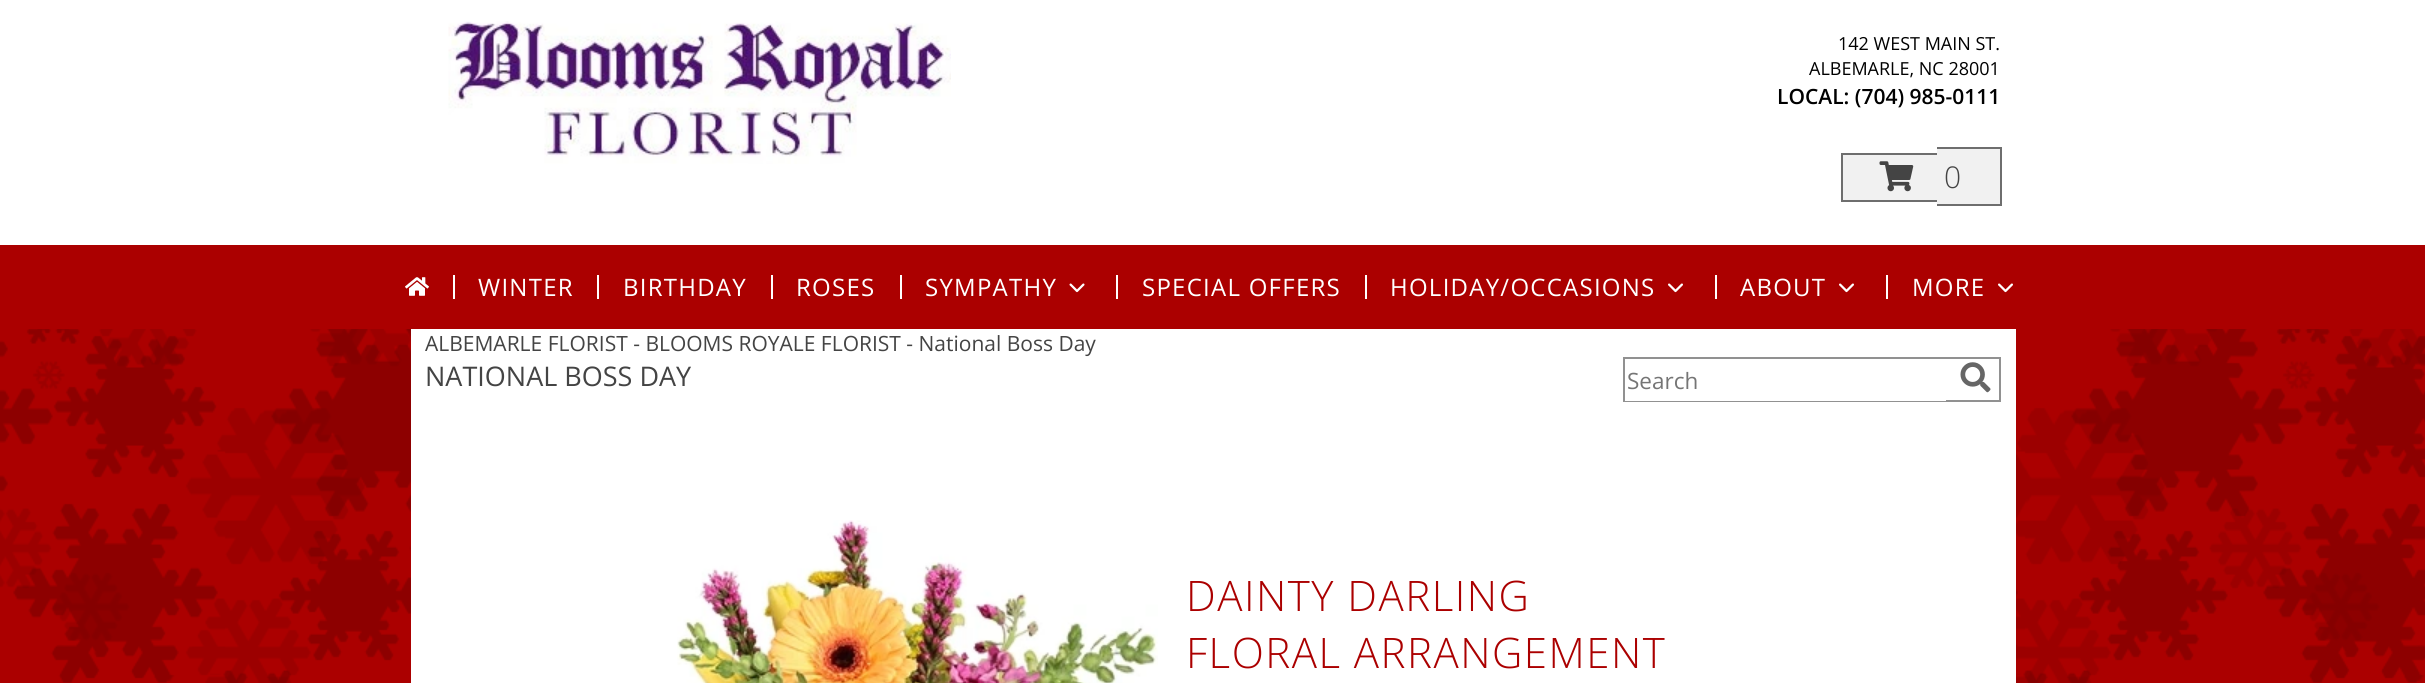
#include <cairo.h>
#include <math.h>
#include <stddef.h>

typedef struct { double x, y, w, h; unsigned color; } box_t;

static void ink(cairo_t *ctx, unsigned color) {
    cairo_set_source_rgb(ctx, (color >> 16) / 255.0, (color >> 8 & 255) / 255.0, (color & 255) / 255.0);
}

static void write_spaced(cairo_t *ctx, double x, double y, const char *s, double letter, double word) {
    cairo_move_to(ctx, x, y);
    while (*s) {
        char ch[5] = {0};
        int n = 0;
        do ch[n++] = *s++; while ((*s & 0xC0) == 0x80);
        cairo_show_text(ctx, ch);
        cairo_rel_move_to(ctx, letter + word * (*ch == ' '), 0);
    }
}

static void paste(cairo_t *ctx, const char *path, double x, double y, double w, double h) {
    cairo_surface_t *image = cairo_image_surface_create_from_png(path);
    cairo_save(ctx);
    cairo_set_source_surface(ctx, image, x, y);
    cairo_rectangle(ctx, x, y, w, h);
    cairo_fill(ctx);
    cairo_restore(ctx);
    cairo_surface_destroy(image);
}

int main(void) {
    cairo_surface_t *surface = cairo_image_surface_create(CAIRO_FORMAT_RGB24, 2425, 683);
    cairo_t *ctx = cairo_create(surface);
    cairo_font_options_t *options = cairo_font_options_create();
    cairo_font_options_set_hint_metrics(options, CAIRO_HINT_METRICS_OFF);
    cairo_font_options_set_hint_style(options, CAIRO_HINT_STYLE_NONE);
    cairo_set_font_options(ctx, options);
    cairo_set_miter_limit(ctx, 4);
    ink(ctx, 0xAB0000);
    cairo_paint(ctx);
    paste(ctx, "media/1.png", 0, 329, 2425, 354);
    ink(ctx, 0xFFFFFF);
    cairo_rectangle(ctx, 411, 329, 1605, 354);
    cairo_fill(ctx);
    cairo_rectangle(ctx, 0, 0, 2425, 245);
    cairo_fill(ctx);
    paste(ctx, "media/2.png", 448, 21, 503, 143);
    cairo_select_font_face(ctx, "Open Sans", CAIRO_FONT_SLANT_NORMAL, CAIRO_FONT_WEIGHT_NORMAL);
    cairo_set_font_size(ctx, 18);
    ink(ctx, 0x000000);
    cairo_move_to(ctx, 1838, 50);
    cairo_show_text(ctx, "142 WEST MAIN ST.");
    cairo_move_to(ctx, 1809, 75);
    cairo_show_text(ctx, "ALBEMARLE, NC 28001");
    cairo_select_font_face(ctx, "Open Sans SemiBold", CAIRO_FONT_SLANT_NORMAL, CAIRO_FONT_WEIGHT_NORMAL);
    cairo_set_font_size(ctx, 21);
    cairo_move_to(ctx, 1777, 104);
    cairo_show_text(ctx, "LOCAL: (704) 985-0111");
    {
        static const box_t items[] = {
            {1843, 155, 94, 45, 0xF1F1F1},
            {1841, 153, 96, 2, 0x6E6E6E},
            {1841, 200, 96, 2, 0x6E6E6E},
            {1841, 153, 2, 48, 0x6E6E6E},
            {1937, 147, 7, 59, 0xF1F1F1},
            {1937, 147, 64, 2, 0x6E6E6E},
            {1937, 204, 7, 2, 0x6E6E6E},
            {1944, 149, 56, 55, 0xF1F1F1},
            {2000, 147, 2, 59, 0x6E6E6E},
            {1944, 204, 57, 2, 0x6E6E6E},
        };
        for (size_t i = 0; i < sizeof items / sizeof *items; i++) {
            ink(ctx, items[i].color);
            cairo_rectangle(ctx, items[i].x, items[i].y, items[i].w, items[i].h);
            cairo_fill(ctx);
        }
    }
    paste(ctx, "media/3.png", 1879, 161, 35, 31);
    cairo_select_font_face(ctx, "Open Sans Light", CAIRO_FONT_SLANT_NORMAL, CAIRO_FONT_WEIGHT_NORMAL);
    cairo_set_font_size(ctx, 30);
    ink(ctx, 0x444444);
    cairo_move_to(ctx, 1944, 188);
    cairo_show_text(ctx, "0");
    paste(ctx, "media/4.png", 405, 277, 24, 19);
    ink(ctx, 0xFFFFFF);
    cairo_rectangle(ctx, 453, 275, 2, 24);
    cairo_fill(ctx);
    cairo_select_font_face(ctx, "Open Sans", CAIRO_FONT_SLANT_NORMAL, CAIRO_FONT_WEIGHT_NORMAL);
    cairo_set_font_size(ctx, 24);
    write_spaced(ctx, 478, 296, "WINTER", 1.25, 0);
    cairo_rectangle(ctx, 597, 275, 2, 24);
    cairo_fill(ctx);
    write_spaced(ctx, 623, 296, "BIRTHDAY", 1.25, 0);
    cairo_rectangle(ctx, 771, 275, 2, 24);
    cairo_fill(ctx);
    write_spaced(ctx, 796, 296, "ROSES", 1.25, 0);
    cairo_rectangle(ctx, 900, 275, 2, 24);
    cairo_fill(ctx);
    write_spaced(ctx, 925, 296, "SYMPATHY", 1.25, 0);
    paste(ctx, "media/5.png", 1069, 283, 16, 10);
    cairo_rectangle(ctx, 1116, 275, 2, 24);
    cairo_fill(ctx);
    write_spaced(ctx, 1142, 296, "SPECIAL OFFERS", 1.25, 0);
    cairo_rectangle(ctx, 1365, 275, 2, 24);
    cairo_fill(ctx);
    write_spaced(ctx, 1390, 296, "HOLIDAY/OCCASIONS", 1.25, 0);
    paste(ctx, "media/6.png", 1668, 283, 15, 10);
    cairo_rectangle(ctx, 1715, 275, 2, 24);
    cairo_fill(ctx);
    write_spaced(ctx, 1740, 296, "ABOUT", 1.25, 0);
    paste(ctx, "media/6.png", 1839, 283, 15, 10);
    cairo_rectangle(ctx, 1886, 275, 2, 24);
    cairo_fill(ctx);
    write_spaced(ctx, 1912, 296, "MORE", 1.25, 0);
    paste(ctx, "media/6.png", 1998, 283, 15, 10);
    cairo_set_font_size(ctx, 21);
    ink(ctx, 0x444444);
    cairo_move_to(ctx, 425, 351);
    cairo_show_text(ctx, "ALBEMARLE FLORIST - BLOOMS ROYALE FLORIST - National Boss Day");
    cairo_set_font_size(ctx, 27);
    cairo_move_to(ctx, 425, 386);
    cairo_show_text(ctx, "NATIONAL BOSS DAY");
    cairo_rectangle(ctx, 1624, 358, 376, 43);
    ink(ctx, 0x919191);
    cairo_stroke(ctx);
    ink(ctx, 0xFFFFFF);
    cairo_rectangle(ctx, 1625, 400, 321, 1);
    cairo_fill(ctx);
    cairo_set_font_size(ctx, 22.5);
    ink(ctx, 0x757575);
    cairo_move_to(ctx, 1627, 389);
    cairo_show_text(ctx, "Search");
    paste(ctx, "media/7.png", 1960, 362, 31, 31);
    paste(ctx, "media/8.png", 677, 520, 481, 163);
    cairo_select_font_face(ctx, "Open Sans Light", CAIRO_FONT_SLANT_NORMAL, CAIRO_FONT_WEIGHT_NORMAL);
    cairo_set_font_size(ctx, 42);
    ink(ctx, 0xAB0000);
    write_spaced(ctx, 1186, 611, "DAINTY DARLING", 1.5, 0);
    write_spaced(ctx, 1186, 668, "FLORAL ARRANGEMENT", 1.5, 0);
    cairo_surface_write_to_png(surface, "image.png");
    cairo_font_options_destroy(options);
    cairo_destroy(ctx);
    cairo_surface_destroy(surface);
    return 0;
}
